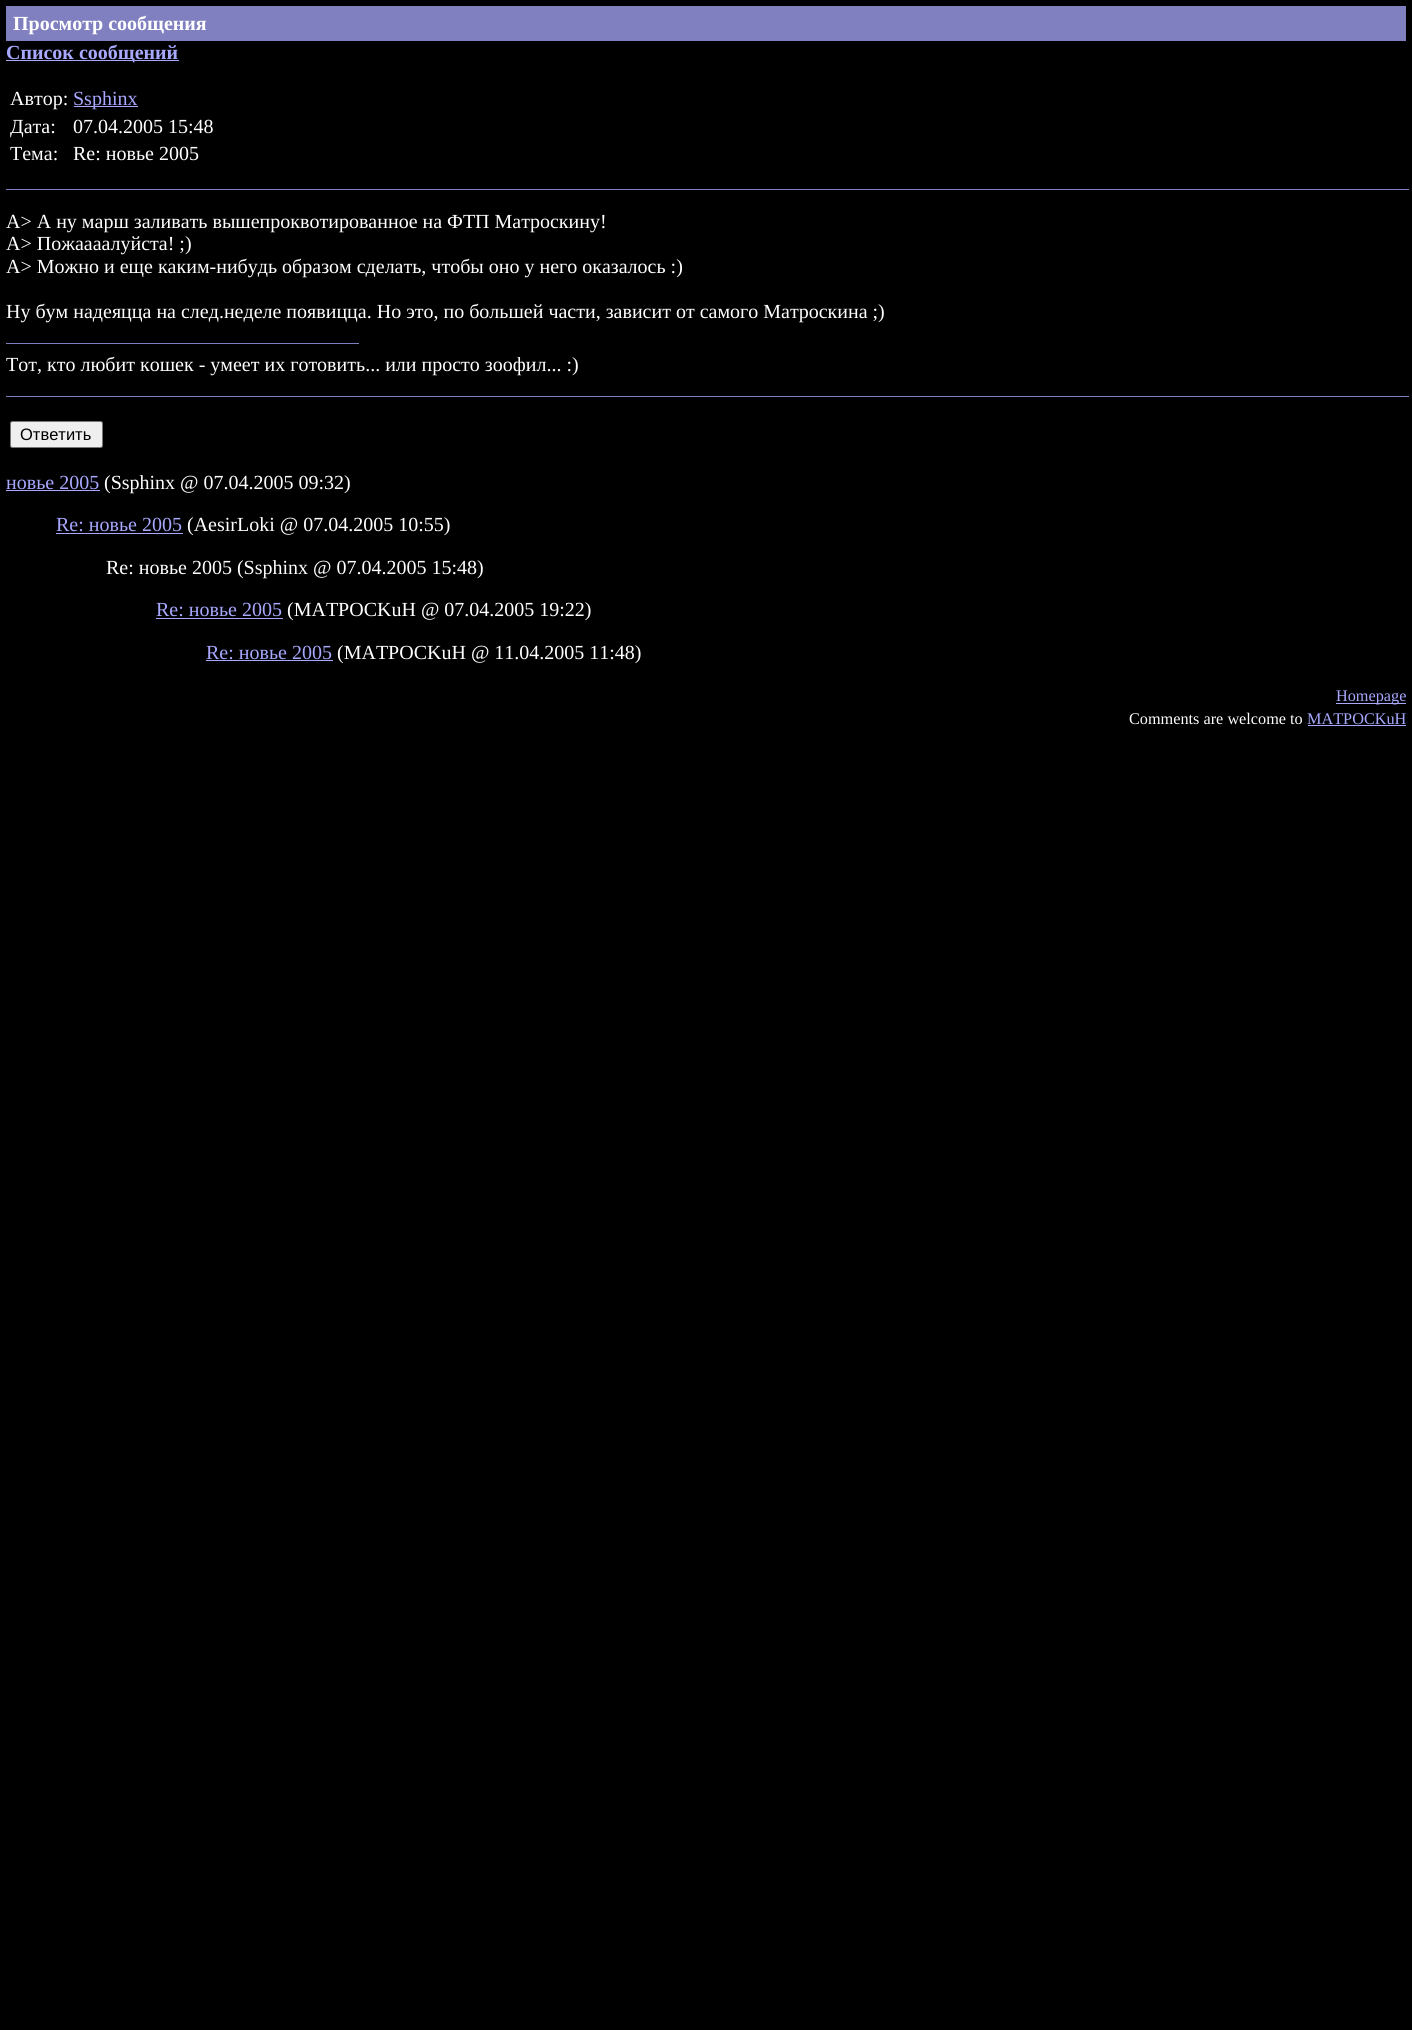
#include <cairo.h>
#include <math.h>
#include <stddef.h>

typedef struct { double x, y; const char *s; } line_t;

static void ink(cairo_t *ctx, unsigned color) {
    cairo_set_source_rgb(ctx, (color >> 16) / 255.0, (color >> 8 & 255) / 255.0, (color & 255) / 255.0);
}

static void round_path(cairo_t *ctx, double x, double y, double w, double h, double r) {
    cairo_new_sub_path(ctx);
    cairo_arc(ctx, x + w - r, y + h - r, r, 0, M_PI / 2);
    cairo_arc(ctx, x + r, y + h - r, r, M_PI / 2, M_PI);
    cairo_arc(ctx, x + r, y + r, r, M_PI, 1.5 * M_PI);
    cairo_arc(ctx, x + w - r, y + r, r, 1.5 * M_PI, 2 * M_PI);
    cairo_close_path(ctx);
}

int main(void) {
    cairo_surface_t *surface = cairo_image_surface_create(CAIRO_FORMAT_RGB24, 1412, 2030);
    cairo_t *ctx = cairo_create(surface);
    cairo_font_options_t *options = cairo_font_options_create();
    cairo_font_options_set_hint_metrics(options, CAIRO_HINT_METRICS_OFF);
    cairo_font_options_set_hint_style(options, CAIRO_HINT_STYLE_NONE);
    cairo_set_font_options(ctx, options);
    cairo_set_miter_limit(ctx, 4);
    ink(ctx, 0x000000);
    cairo_paint(ctx);
    ink(ctx, 0x8080C0);
    cairo_rectangle(ctx, 6, 6, 1400, 35);
    cairo_fill(ctx);
    cairo_select_font_face(ctx, "Liberation Serif", CAIRO_FONT_SLANT_NORMAL, CAIRO_FONT_WEIGHT_BOLD);
    cairo_set_font_size(ctx, 20);
    ink(ctx, 0xFFFFFF);
    cairo_move_to(ctx, 13, 30);
    cairo_show_text(ctx, "Просмотр сообщения");
    ink(ctx, 0xA8A8FF);
    cairo_rectangle(ctx, 6, 60, 173, 1);
    cairo_fill(ctx);
    cairo_move_to(ctx, 6, 59);
    cairo_show_text(ctx, "Список сообщений");
    cairo_select_font_face(ctx, "Liberation Serif", CAIRO_FONT_SLANT_NORMAL, CAIRO_FONT_WEIGHT_NORMAL);
    ink(ctx, 0xFFFFFF);
    cairo_move_to(ctx, 10, 105);
    cairo_show_text(ctx, "Автор:");
    ink(ctx, 0xA8A8FF);
    cairo_rectangle(ctx, 74, 106, 64, 1);
    cairo_fill(ctx);
    cairo_move_to(ctx, 73, 105);
    cairo_show_text(ctx, "Ssphinx");
    ink(ctx, 0xFFFFFF);
    {
        static const line_t items[] = {
            {10, 133, "Дата:"},
            {73, 133, "07.04.2005 15:48"},
            {10, 160, "Тема:"},
            {73, 160, "Re: новье 2005"},
        };
        for (size_t i = 0; i < sizeof items / sizeof *items; i++) {
            cairo_move_to(ctx, items[i].x, items[i].y);
            cairo_show_text(ctx, items[i].s);
        }
    }
    ink(ctx, 0x8080C0);
    cairo_rectangle(ctx, 6, 189, 1403, 1);
    cairo_fill(ctx);
    ink(ctx, 0xFFFFFF);
    {
        static const line_t items[] = {
            {6, 228, "A> А ну марш заливать вышепроквотированное на ФТП Матроскину!"},
            {6, 250, "A> Пожаааалуйста! ;)"},
            {6, 273, "A> Можно и еще каким-нибудь образом сделать, чтобы оно у него оказалось :)"},
            {6, 318, "Ну бум надеяцца на след.неделе появицца. Но это, по большей части, зависит от самого Матроскина ;)"},
        };
        for (size_t i = 0; i < sizeof items / sizeof *items; i++) {
            cairo_move_to(ctx, items[i].x, items[i].y);
            cairo_show_text(ctx, items[i].s);
        }
    }
    ink(ctx, 0x8080C0);
    cairo_rectangle(ctx, 6, 343, 353, 1);
    cairo_fill(ctx);
    ink(ctx, 0xFFFFFF);
    cairo_move_to(ctx, 6, 371);
    cairo_show_text(ctx, "Тот, кто любит кошек - умеет их готовить... или просто зоофил... :)");
    ink(ctx, 0x8080C0);
    cairo_rectangle(ctx, 6, 396, 1403, 1);
    cairo_fill(ctx);
    ink(ctx, 0xEFEFEF);
    round_path(ctx, 10.5, 421.5, 92, 26, 2);
    cairo_fill_preserve(ctx);
    ink(ctx, 0x767676);
    cairo_set_line_width(ctx, 1);
    cairo_stroke(ctx);
    cairo_select_font_face(ctx, "Liberation Sans", CAIRO_FONT_SLANT_NORMAL, CAIRO_FONT_WEIGHT_NORMAL);
    cairo_set_font_size(ctx, 16.5);
    ink(ctx, 0x000000);
    cairo_move_to(ctx, 20, 440);
    cairo_show_text(ctx, "Ответить");
    cairo_select_font_face(ctx, "Liberation Serif", CAIRO_FONT_SLANT_NORMAL, CAIRO_FONT_WEIGHT_NORMAL);
    cairo_set_font_size(ctx, 20);
    ink(ctx, 0xA8A8FF);
    cairo_move_to(ctx, 6, 489);
    cairo_show_text(ctx, "новье 2005");
    cairo_rectangle(ctx, 6, 490, 94, 1);
    cairo_fill(ctx);
    ink(ctx, 0xFFFFFF);
    cairo_move_to(ctx, 104, 489);
    cairo_show_text(ctx, "(Ssphinx @ 07.04.2005 09:32)");
    ink(ctx, 0xA8A8FF);
    cairo_move_to(ctx, 56, 531);
    cairo_show_text(ctx, "Re: новье 2005");
    cairo_rectangle(ctx, 56, 533, 127, 1);
    cairo_fill(ctx);
    ink(ctx, 0xFFFFFF);
    cairo_move_to(ctx, 187, 531);
    cairo_show_text(ctx, "(AesirLoki @ 07.04.2005 10:55)");
    cairo_move_to(ctx, 106, 574);
    cairo_show_text(ctx, "Re: новье 2005 (Ssphinx @ 07.04.2005 15:48)");
    ink(ctx, 0xA8A8FF);
    cairo_move_to(ctx, 156, 616);
    cairo_show_text(ctx, "Re: новье 2005");
    cairo_rectangle(ctx, 156, 618, 127, 1);
    cairo_fill(ctx);
    ink(ctx, 0xFFFFFF);
    cairo_move_to(ctx, 287, 616);
    cairo_show_text(ctx, "(MATPOCKuH @ 07.04.2005 19:22)");
    ink(ctx, 0xA8A8FF);
    cairo_move_to(ctx, 206, 659);
    cairo_show_text(ctx, "Re: новье 2005");
    cairo_rectangle(ctx, 206, 660, 127, 1);
    cairo_fill(ctx);
    ink(ctx, 0xFFFFFF);
    cairo_move_to(ctx, 337, 659);
    cairo_show_text(ctx, "(MATPOCKuH @ 11.04.2005 11:48)");
    ink(ctx, 0xA8A8FF);
    cairo_rectangle(ctx, 1336, 703, 70, 1);
    cairo_fill(ctx);
    cairo_set_font_size(ctx, 16.25);
    cairo_move_to(ctx, 1336, 701);
    cairo_show_text(ctx, "Homepage");
    ink(ctx, 0xFFFFFF);
    cairo_move_to(ctx, 1129, 724);
    cairo_show_text(ctx, "Comments are welcome to");
    ink(ctx, 0xA8A8FF);
    cairo_move_to(ctx, 1307, 724);
    cairo_show_text(ctx, "MATPOCKuH");
    cairo_rectangle(ctx, 1308, 725, 98, 1);
    cairo_fill(ctx);
    cairo_surface_write_to_png(surface, "image.png");
    cairo_font_options_destroy(options);
    cairo_destroy(ctx);
    cairo_surface_destroy(surface);
    return 0;
}
